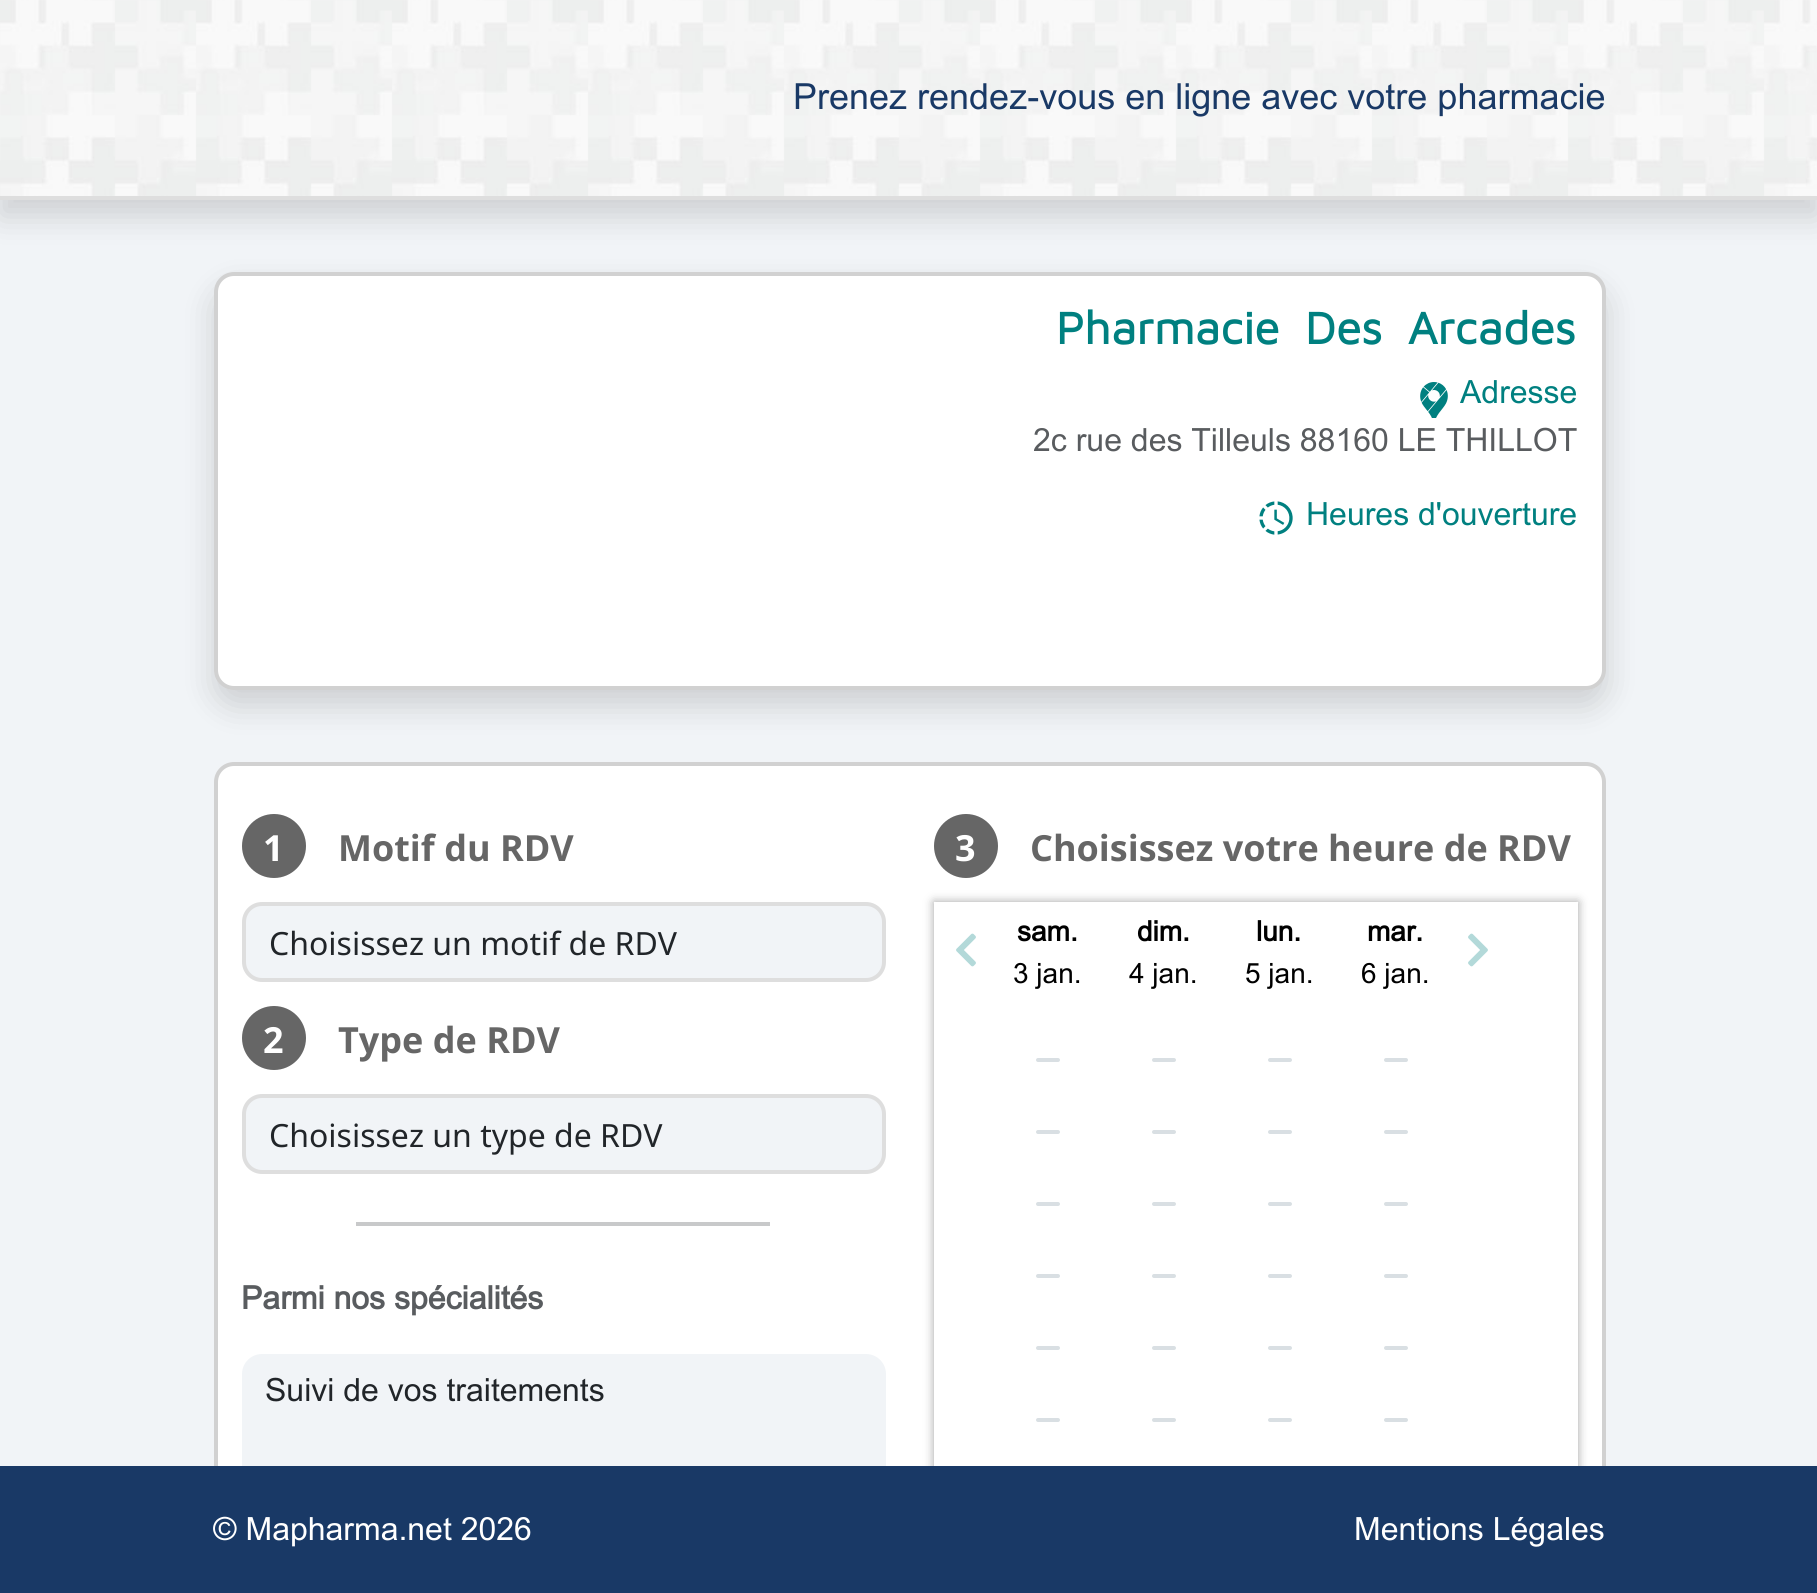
#include <cairo.h>
#include <math.h>
#include <stddef.h>


static void ink(cairo_t *ctx, unsigned color) {
    cairo_set_source_rgb(ctx, (color >> 16) / 255.0, (color >> 8 & 255) / 255.0, (color & 255) / 255.0);
}

static void write_spaced(cairo_t *ctx, double x, double y, const char *s, double letter, double word) {
    cairo_move_to(ctx, x, y);
    while (*s) {
        char ch[5] = {0};
        int n = 0;
        do ch[n++] = *s++; while ((*s & 0xC0) == 0x80);
        cairo_show_text(ctx, ch);
        cairo_rel_move_to(ctx, letter + word * (*ch == ' '), 0);
    }
}

static void round_path(cairo_t *ctx, double x, double y, double w, double h, double r) {
    cairo_new_sub_path(ctx);
    cairo_arc(ctx, x + w - r, y + h - r, r, 0, M_PI / 2);
    cairo_arc(ctx, x + r, y + h - r, r, M_PI / 2, M_PI);
    cairo_arc(ctx, x + r, y + r, r, M_PI, 1.5 * M_PI);
    cairo_arc(ctx, x + w - r, y + r, r, 1.5 * M_PI, 2 * M_PI);
    cairo_close_path(ctx);
}

static void blur_box(cairo_t *ctx, double x, double y, double w, double h, double r, double blur, double alpha) {
    cairo_push_group_with_content(ctx, CAIRO_CONTENT_ALPHA);
    cairo_set_operator(ctx, CAIRO_OPERATOR_SOURCE);
    for (int i = 15; i >= -15 && fmin(w, h) + blur * i / 3 > 0; i -= 2) {
        double e = blur * i / 6;
        cairo_set_source_rgba(ctx, 0, 0, 0, alpha * erfc((i - 1) / 8.5) / 2);
        round_path(ctx, x - e, y - e, w + 2 * e, h + 2 * e, fmax(0, fmin(r + e + blur * .6, fmin(w, h) / 2 + e)));
        cairo_fill(ctx);
    }
    cairo_pattern_t *soft = cairo_pop_group(ctx);
    cairo_mask(ctx, soft);
    cairo_pattern_destroy(soft);
}

static void paste(cairo_t *ctx, const char *path, double x, double y, double w, double h) {
    cairo_surface_t *image = cairo_image_surface_create_from_png(path);
    cairo_save(ctx);
    cairo_set_source_surface(ctx, image, x, y);
    cairo_rectangle(ctx, x, y, w, h);
    cairo_fill(ctx);
    cairo_restore(ctx);
    cairo_surface_destroy(image);
}

int main(void) {
    cairo_surface_t *surface = cairo_image_surface_create(CAIRO_FORMAT_RGB24, 1817, 1593);
    cairo_t *ctx = cairo_create(surface);
    cairo_font_options_t *options = cairo_font_options_create();
    cairo_font_options_set_hint_metrics(options, CAIRO_HINT_METRICS_OFF);
    cairo_font_options_set_hint_style(options, CAIRO_HINT_STYLE_NONE);
    cairo_set_font_options(ctx, options);
    cairo_set_miter_limit(ctx, 4);
    ink(ctx, 0xF1F4F7);
    cairo_paint(ctx);
    ink(ctx, 0x000000);
    blur_box(ctx, 0, 16, 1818, 200, 0, 16, 0.15);
    paste(ctx, "media/1.png", 0, 0, 1817, 196);
    ink(ctx, 0xDEDEDE);
    cairo_rectangle(ctx, 0, 196, 1817, 4);
    cairo_fill(ctx);
    cairo_select_font_face(ctx, "Arial", CAIRO_FONT_SLANT_NORMAL, CAIRO_FONT_WEIGHT_NORMAL);
    cairo_set_font_size(ctx, 36);
    ink(ctx, 0x193966);
    cairo_move_to(ctx, 793, 109);
    cairo_show_text(ctx, "Prenez rendez-vous en ligne avec votre pharmacie");
    ink(ctx, 0x000000);
    blur_box(ctx, 214, 288, 1392, 418, 20, 16, 0.15);
    ink(ctx, 0xFFFFFF);
    round_path(ctx, 214, 272, 1392, 418, 20);
    cairo_fill(ctx);
    round_path(ctx, 216, 274, 1388, 414, 18);
    cairo_set_source_rgba(ctx, 0, 0, 0, 0.18);
    cairo_set_line_width(ctx, 4);
    cairo_stroke(ctx);
    cairo_select_font_face(ctx, "Maven Pro", CAIRO_FONT_SLANT_NORMAL, CAIRO_FONT_WEIGHT_BOLD);
    cairo_set_font_size(ctx, 46.25);
    ink(ctx, 0x008080);
    write_spaced(ctx, 1056, 344, "Pharmacie Des Arcades", 0, 12);
    paste(ctx, "media/2.png", 1420, 382, 28, 36);
    cairo_select_font_face(ctx, "Arial", CAIRO_FONT_SLANT_NORMAL, CAIRO_FONT_WEIGHT_NORMAL);
    cairo_set_font_size(ctx, 32);
    cairo_move_to(ctx, 1460, 403);
    cairo_show_text(ctx, "Adresse");
    ink(ctx, 0x595C5F);
    cairo_move_to(ctx, 1033, 451);
    cairo_show_text(ctx, "2c rue des Tilleuls 88160 LE THILLOT");
    paste(ctx, "media/3.png", 1259, 501, 34, 34);
    ink(ctx, 0x008080);
    cairo_move_to(ctx, 1306, 525);
    cairo_show_text(ctx, "Heures d'ouverture");
    ink(ctx, 0xFFFFFF);
    round_path(ctx, 214, 762, 1392, 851, 20);
    cairo_fill(ctx);
    round_path(ctx, 216, 764, 1388, 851, 18);
    cairo_set_source_rgba(ctx, 0, 0, 0, 0.18);
    cairo_stroke(ctx);
    ink(ctx, 0x666666);
    cairo_arc(ctx, 274, 846, 32, 0, 2 * M_PI);
    cairo_fill(ctx);
    cairo_select_font_face(ctx, "Noto Sans", CAIRO_FONT_SLANT_NORMAL, CAIRO_FONT_WEIGHT_BOLD);
    cairo_set_font_size(ctx, 36);
    ink(ctx, 0xFFFFFF);
    cairo_move_to(ctx, 263, 861);
    cairo_show_text(ctx, "1");
    ink(ctx, 0x666666);
    cairo_move_to(ctx, 338, 861);
    cairo_show_text(ctx, "Motif du RDV");
    ink(ctx, 0xF1F4F7);
    round_path(ctx, 244, 904, 640, 76, 18);
    cairo_fill_preserve(ctx);
    ink(ctx, 0xDEDEDE);
    cairo_stroke(ctx);
    cairo_select_font_face(ctx, "Noto Sans", CAIRO_FONT_SLANT_NORMAL, CAIRO_FONT_WEIGHT_NORMAL);
    cairo_set_font_size(ctx, 32);
    ink(ctx, 0x212529);
    cairo_move_to(ctx, 269, 955);
    cairo_show_text(ctx, "Choisissez un motif de RDV");
    ink(ctx, 0x666666);
    cairo_new_path(ctx);
    cairo_arc(ctx, 274, 1038, 32, 0, 2 * M_PI);
    cairo_fill(ctx);
    cairo_select_font_face(ctx, "Noto Sans", CAIRO_FONT_SLANT_NORMAL, CAIRO_FONT_WEIGHT_BOLD);
    cairo_set_font_size(ctx, 36);
    ink(ctx, 0xFFFFFF);
    cairo_move_to(ctx, 263, 1053);
    cairo_show_text(ctx, "2");
    ink(ctx, 0x666666);
    cairo_move_to(ctx, 338, 1053);
    cairo_show_text(ctx, "Type de RDV");
    ink(ctx, 0xF1F4F7);
    round_path(ctx, 244, 1096, 640, 76, 18);
    cairo_fill_preserve(ctx);
    ink(ctx, 0xDEDEDE);
    cairo_stroke(ctx);
    cairo_select_font_face(ctx, "Noto Sans", CAIRO_FONT_SLANT_NORMAL, CAIRO_FONT_WEIGHT_NORMAL);
    cairo_set_font_size(ctx, 32);
    ink(ctx, 0x212529);
    cairo_move_to(ctx, 269, 1147);
    cairo_show_text(ctx, "Choisissez un type de RDV");
    ink(ctx, 0xC8C9CA);
    cairo_rectangle(ctx, 356, 1222, 414, 4);
    cairo_fill(ctx);
    cairo_select_font_face(ctx, "Arial", CAIRO_FONT_SLANT_NORMAL, CAIRO_FONT_WEIGHT_BOLD);
    ink(ctx, 0x595C5F);
    cairo_move_to(ctx, 241, 1309);
    cairo_show_text(ctx, "Parmi nos spécialités");
    ink(ctx, 0xF1F4F7);
    cairo_new_path(ctx);
    cairo_move_to(ctx, 262, 1354);
    cairo_line_to(ctx, 866, 1354);
    cairo_curve_to(ctx, 877, 1354, 886, 1363, 886, 1374);
    cairo_line_to(ctx, 886, 1426);
    cairo_line_to(ctx, 242, 1426);
    cairo_line_to(ctx, 242, 1374);
    cairo_curve_to(ctx, 242, 1363, 251, 1354, 262, 1354);
    cairo_close_path(ctx);
    cairo_fill(ctx);
    cairo_select_font_face(ctx, "Arial", CAIRO_FONT_SLANT_NORMAL, CAIRO_FONT_WEIGHT_NORMAL);
    ink(ctx, 0x212529);
    cairo_move_to(ctx, 265, 1401);
    cairo_show_text(ctx, "Suivi de vos traitements");
    ink(ctx, 0xF1F4F7);
    cairo_rectangle(ctx, 242, 1426, 644, 40);
    cairo_fill(ctx);
    ink(ctx, 0x666666);
    cairo_arc(ctx, 966, 846, 32, 0, 2 * M_PI);
    cairo_fill(ctx);
    cairo_select_font_face(ctx, "Noto Sans", CAIRO_FONT_SLANT_NORMAL, CAIRO_FONT_WEIGHT_BOLD);
    cairo_set_font_size(ctx, 36);
    ink(ctx, 0xFFFFFF);
    cairo_move_to(ctx, 955, 861);
    cairo_show_text(ctx, "3");
    ink(ctx, 0x666666);
    cairo_move_to(ctx, 1030, 861);
    cairo_show_text(ctx, "Choisissez votre heure de RDV");
    cairo_save(ctx);
    cairo_set_fill_rule(ctx, CAIRO_FILL_RULE_EVEN_ODD);
    cairo_new_path(ctx);
    cairo_move_to(ctx, 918, 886);
    cairo_line_to(ctx, 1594, 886);
    cairo_line_to(ctx, 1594, 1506);
    cairo_line_to(ctx, 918, 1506);
    cairo_close_path(ctx);
    cairo_move_to(ctx, 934, 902);
    cairo_line_to(ctx, 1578, 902);
    cairo_line_to(ctx, 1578, 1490);
    cairo_line_to(ctx, 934, 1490);
    cairo_close_path(ctx);
    cairo_clip(ctx);
    ink(ctx, 0xA2A2A2);
    blur_box(ctx, 934, 902, 644, 588, 0, 5, 1);
    cairo_restore(ctx);
    paste(ctx, "media/4.png", 956, 933, 20, 34);
    cairo_select_font_face(ctx, "Arial", CAIRO_FONT_SLANT_NORMAL, CAIRO_FONT_WEIGHT_BOLD);
    cairo_set_font_size(ctx, 28);
    ink(ctx, 0x000000);
    cairo_move_to(ctx, 1017, 941);
    cairo_show_text(ctx, "sam.");
    cairo_select_font_face(ctx, "Arial", CAIRO_FONT_SLANT_NORMAL, CAIRO_FONT_WEIGHT_NORMAL);
    cairo_move_to(ctx, 1013, 983);
    cairo_show_text(ctx, "3 jan.");
    ink(ctx, 0xD9DFE3);
    round_path(ctx, 1036, 1058, 24, 4, 2);
    cairo_fill(ctx);
    round_path(ctx, 1036, 1130, 24, 4, 2);
    cairo_fill(ctx);
    round_path(ctx, 1036, 1202, 24, 4, 2);
    cairo_fill(ctx);
    round_path(ctx, 1036, 1274, 24, 4, 2);
    cairo_fill(ctx);
    round_path(ctx, 1036, 1346, 24, 4, 2);
    cairo_fill(ctx);
    round_path(ctx, 1036, 1418, 24, 4, 2);
    cairo_fill(ctx);
    cairo_select_font_face(ctx, "Arial", CAIRO_FONT_SLANT_NORMAL, CAIRO_FONT_WEIGHT_BOLD);
    ink(ctx, 0x000000);
    cairo_move_to(ctx, 1137, 941);
    cairo_show_text(ctx, "dim.");
    cairo_select_font_face(ctx, "Arial", CAIRO_FONT_SLANT_NORMAL, CAIRO_FONT_WEIGHT_NORMAL);
    cairo_move_to(ctx, 1129, 983);
    cairo_show_text(ctx, "4 jan.");
    ink(ctx, 0xD9DFE3);
    round_path(ctx, 1152, 1058, 24, 4, 2);
    cairo_fill(ctx);
    round_path(ctx, 1152, 1130, 24, 4, 2);
    cairo_fill(ctx);
    round_path(ctx, 1152, 1202, 24, 4, 2);
    cairo_fill(ctx);
    round_path(ctx, 1152, 1274, 24, 4, 2);
    cairo_fill(ctx);
    round_path(ctx, 1152, 1346, 24, 4, 2);
    cairo_fill(ctx);
    round_path(ctx, 1152, 1418, 24, 4, 2);
    cairo_fill(ctx);
    cairo_select_font_face(ctx, "Arial", CAIRO_FONT_SLANT_NORMAL, CAIRO_FONT_WEIGHT_BOLD);
    ink(ctx, 0x000000);
    cairo_move_to(ctx, 1256, 941);
    cairo_show_text(ctx, "lun.");
    cairo_select_font_face(ctx, "Arial", CAIRO_FONT_SLANT_NORMAL, CAIRO_FONT_WEIGHT_NORMAL);
    cairo_move_to(ctx, 1245, 983);
    cairo_show_text(ctx, "5 jan.");
    ink(ctx, 0xD9DFE3);
    round_path(ctx, 1268, 1058, 24, 4, 2);
    cairo_fill(ctx);
    round_path(ctx, 1268, 1130, 24, 4, 2);
    cairo_fill(ctx);
    round_path(ctx, 1268, 1202, 24, 4, 2);
    cairo_fill(ctx);
    round_path(ctx, 1268, 1274, 24, 4, 2);
    cairo_fill(ctx);
    round_path(ctx, 1268, 1346, 24, 4, 2);
    cairo_fill(ctx);
    round_path(ctx, 1268, 1418, 24, 4, 2);
    cairo_fill(ctx);
    cairo_select_font_face(ctx, "Arial", CAIRO_FONT_SLANT_NORMAL, CAIRO_FONT_WEIGHT_BOLD);
    ink(ctx, 0x000000);
    cairo_move_to(ctx, 1367, 941);
    cairo_show_text(ctx, "mar.");
    cairo_select_font_face(ctx, "Arial", CAIRO_FONT_SLANT_NORMAL, CAIRO_FONT_WEIGHT_NORMAL);
    cairo_move_to(ctx, 1361, 983);
    cairo_show_text(ctx, "6 jan.");
    ink(ctx, 0xD9DFE3);
    round_path(ctx, 1384, 1058, 24, 4, 2);
    cairo_fill(ctx);
    round_path(ctx, 1384, 1130, 24, 4, 2);
    cairo_fill(ctx);
    round_path(ctx, 1384, 1202, 24, 4, 2);
    cairo_fill(ctx);
    round_path(ctx, 1384, 1274, 24, 4, 2);
    cairo_fill(ctx);
    round_path(ctx, 1384, 1346, 24, 4, 2);
    cairo_fill(ctx);
    round_path(ctx, 1384, 1418, 24, 4, 2);
    cairo_fill(ctx);
    paste(ctx, "media/5.png", 1468, 933, 20, 34);
    ink(ctx, 0x193966);
    cairo_rectangle(ctx, 0, 1466, 1817, 127);
    cairo_fill(ctx);
    cairo_set_font_size(ctx, 32);
    ink(ctx, 0xFFFFFF);
    cairo_move_to(ctx, 213, 1540);
    cairo_show_text(ctx, "© Mapharma.net 2026");
    cairo_move_to(ctx, 1354, 1540);
    cairo_show_text(ctx, "Mentions Légales");
    cairo_surface_write_to_png(surface, "image.png");
    cairo_font_options_destroy(options);
    cairo_destroy(ctx);
    cairo_surface_destroy(surface);
    return 0;
}
